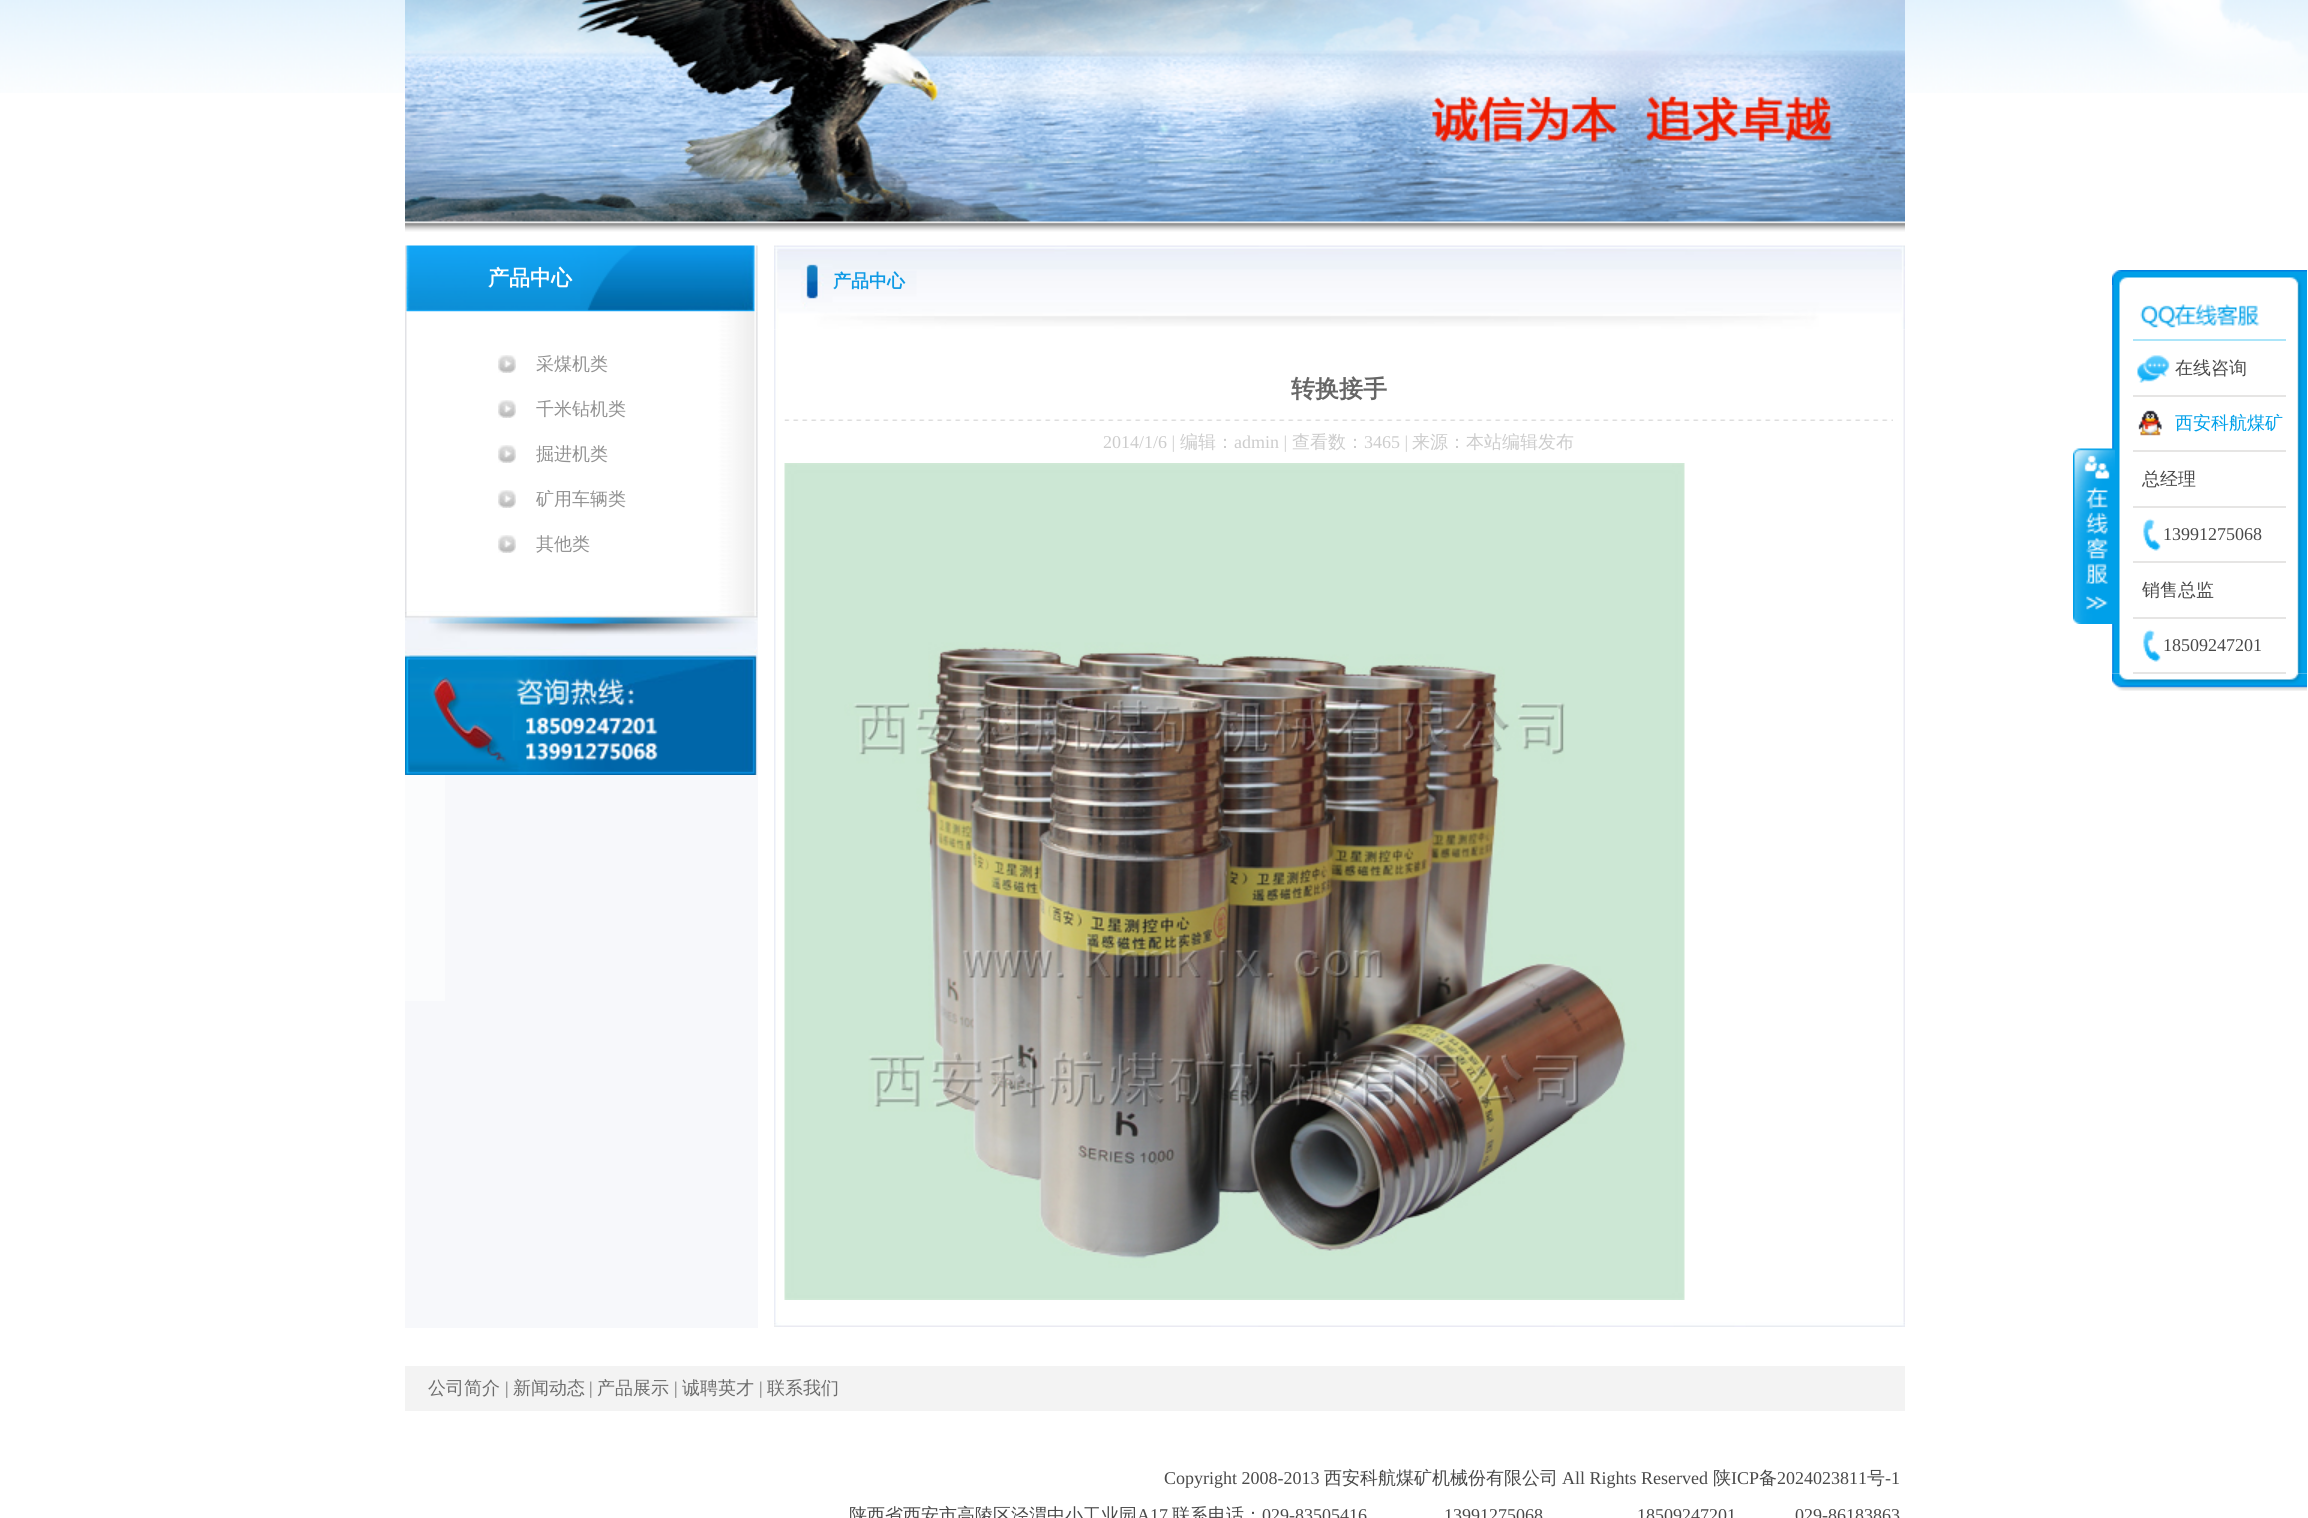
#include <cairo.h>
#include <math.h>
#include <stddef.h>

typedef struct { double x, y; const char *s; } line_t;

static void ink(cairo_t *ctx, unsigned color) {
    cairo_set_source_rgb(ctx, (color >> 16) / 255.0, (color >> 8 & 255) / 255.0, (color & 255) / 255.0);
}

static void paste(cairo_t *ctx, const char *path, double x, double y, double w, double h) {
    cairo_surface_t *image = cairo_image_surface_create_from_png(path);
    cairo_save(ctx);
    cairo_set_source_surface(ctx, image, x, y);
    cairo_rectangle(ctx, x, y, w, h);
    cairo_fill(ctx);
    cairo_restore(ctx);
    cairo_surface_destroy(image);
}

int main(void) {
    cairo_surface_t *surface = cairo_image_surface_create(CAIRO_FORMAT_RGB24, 2308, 1518);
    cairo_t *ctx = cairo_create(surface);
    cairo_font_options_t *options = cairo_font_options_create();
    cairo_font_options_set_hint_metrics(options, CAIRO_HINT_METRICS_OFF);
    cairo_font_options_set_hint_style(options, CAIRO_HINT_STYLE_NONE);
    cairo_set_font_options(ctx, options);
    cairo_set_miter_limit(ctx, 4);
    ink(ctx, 0xFFFFFF);
    cairo_paint(ctx);
    paste(ctx, "media/1.png", 0, 0, 2308, 93);
    paste(ctx, "media/2.png", 405, 0, 1500, 222);
    paste(ctx, "media/3.png", 405, 222, 1500, 10);
    ink(ctx, 0xF7F8FB);
    cairo_rectangle(ctx, 405, 246, 353, 1082);
    cairo_fill(ctx);
    paste(ctx, "media/4.png", 405, 245, 353, 67);
    cairo_select_font_face(ctx, "WenQuanYi Zen Hei", CAIRO_FONT_SLANT_NORMAL, CAIRO_FONT_WEIGHT_BOLD);
    cairo_set_font_size(ctx, 21);
    ink(ctx, 0xFFFFFF);
    cairo_move_to(ctx, 488, 285);
    cairo_show_text(ctx, "产品中心");
    paste(ctx, "media/5.png", 405, 311, 353, 301);
    paste(ctx, "media/6.png", 498, 355, 18, 18);
    cairo_select_font_face(ctx, "WenQuanYi Zen Hei Medium", CAIRO_FONT_SLANT_NORMAL, CAIRO_FONT_WEIGHT_NORMAL);
    cairo_set_font_size(ctx, 18);
    ink(ctx, 0x919191);
    cairo_move_to(ctx, 536, 370);
    cairo_show_text(ctx, "采煤机类");
    paste(ctx, "media/6.png", 498, 400, 18, 18);
    cairo_move_to(ctx, 536, 415);
    cairo_show_text(ctx, "千米钻机类");
    paste(ctx, "media/6.png", 498, 445, 18, 18);
    cairo_move_to(ctx, 536, 460);
    cairo_show_text(ctx, "掘进机类");
    paste(ctx, "media/6.png", 498, 490, 18, 18);
    cairo_move_to(ctx, 536, 505);
    cairo_show_text(ctx, "矿用车辆类");
    paste(ctx, "media/6.png", 498, 535, 18, 18);
    cairo_move_to(ctx, 536, 550);
    cairo_show_text(ctx, "其他类");
    paste(ctx, "media/7.png", 405, 611, 353, 23);
    paste(ctx, "media/8.png", 405, 634, 352, 21);
    paste(ctx, "media/9.png", 405, 655, 353, 120);
    ink(ctx, 0xFBFCFD);
    cairo_rectangle(ctx, 405, 775, 40, 226);
    cairo_fill(ctx);
    paste(ctx, "media/10.png", 774, 245, 1131, 85);
    cairo_select_font_face(ctx, "WenQuanYi Zen Hei", CAIRO_FONT_SLANT_NORMAL, CAIRO_FONT_WEIGHT_BOLD);
    ink(ctx, 0x0F9AE5);
    cairo_move_to(ctx, 833, 287);
    cairo_show_text(ctx, "产品中心");
    paste(ctx, "media/11.png", 774, 329, 1131, 994);
    cairo_set_font_size(ctx, 24);
    ink(ctx, 0x666666);
    cairo_move_to(ctx, 1291, 397);
    cairo_show_text(ctx, "转换接手");
    paste(ctx, "media/12.png", 784, 419, 1109, 2);
    cairo_select_font_face(ctx, "Liberation Serif", CAIRO_FONT_SLANT_NORMAL, CAIRO_FONT_WEIGHT_NORMAL);
    cairo_set_font_size(ctx, 18);
    ink(ctx, 0xCCCCCC);
    cairo_move_to(ctx, 1103, 448);
    cairo_show_text(ctx, "2014/1/6 |");
    cairo_select_font_face(ctx, "WenQuanYi Zen Hei Medium", CAIRO_FONT_SLANT_NORMAL, CAIRO_FONT_WEIGHT_NORMAL);
    cairo_move_to(ctx, 1180, 448);
    cairo_show_text(ctx, "编辑：");
    cairo_select_font_face(ctx, "Liberation Serif", CAIRO_FONT_SLANT_NORMAL, CAIRO_FONT_WEIGHT_NORMAL);
    cairo_move_to(ctx, 1234, 448);
    cairo_show_text(ctx, "admin |");
    cairo_select_font_face(ctx, "WenQuanYi Zen Hei Medium", CAIRO_FONT_SLANT_NORMAL, CAIRO_FONT_WEIGHT_NORMAL);
    cairo_move_to(ctx, 1292, 448);
    cairo_show_text(ctx, "查看数：");
    cairo_select_font_face(ctx, "Liberation Serif", CAIRO_FONT_SLANT_NORMAL, CAIRO_FONT_WEIGHT_NORMAL);
    cairo_move_to(ctx, 1364, 448);
    cairo_show_text(ctx, "3465 |");
    cairo_select_font_face(ctx, "WenQuanYi Zen Hei Medium", CAIRO_FONT_SLANT_NORMAL, CAIRO_FONT_WEIGHT_NORMAL);
    cairo_move_to(ctx, 1412, 448);
    cairo_show_text(ctx, "来源：本站编辑发布");
    paste(ctx, "media/13.png", 784, 463, 901, 837);
    paste(ctx, "media/14.png", 774, 1322, 1131, 5);
    paste(ctx, "media/16.png", 2112, 673, 195, 18);
    paste(ctx, "media/18.png", 2112, 285, 195, 389);
    paste(ctx, "media/15.png", 2073, 448, 42, 176);
    paste(ctx, "media/17.png", 2112, 270, 195, 15);
    ink(ctx, 0xACE5F9);
    cairo_rectangle(ctx, 2133, 339, 153, 2);
    cairo_fill(ctx);
    paste(ctx, "media/19.png", 2140, 304, 120, 24);
    ink(ctx, 0xE6E5E4);
    cairo_rectangle(ctx, 2133, 395, 153, 2);
    cairo_fill(ctx);
    paste(ctx, "media/20.png", 2137, 355, 33, 28);
    ink(ctx, 0x494949);
    cairo_move_to(ctx, 2175, 374);
    cairo_show_text(ctx, "在线咨询");
    ink(ctx, 0xE6E5E4);
    cairo_rectangle(ctx, 2133, 450, 153, 2);
    cairo_fill(ctx);
    paste(ctx, "media/21.png", 2138, 410, 24, 26);
    ink(ctx, 0x00A0E9);
    cairo_move_to(ctx, 2175, 429);
    cairo_show_text(ctx, "西安科航煤矿");
    ink(ctx, 0xE6E5E4);
    cairo_rectangle(ctx, 2133, 506, 153, 2);
    cairo_fill(ctx);
    ink(ctx, 0x494949);
    cairo_move_to(ctx, 2142, 485);
    cairo_show_text(ctx, "总经理");
    ink(ctx, 0xE6E5E4);
    cairo_rectangle(ctx, 2133, 561, 153, 2);
    cairo_fill(ctx);
    paste(ctx, "media/22.png", 2143, 518, 18, 33);
    cairo_select_font_face(ctx, "Liberation Serif", CAIRO_FONT_SLANT_NORMAL, CAIRO_FONT_WEIGHT_NORMAL);
    ink(ctx, 0x494949);
    cairo_move_to(ctx, 2163, 540);
    cairo_show_text(ctx, "13991275068");
    ink(ctx, 0xE6E5E4);
    cairo_rectangle(ctx, 2133, 617, 153, 2);
    cairo_fill(ctx);
    cairo_select_font_face(ctx, "WenQuanYi Zen Hei Medium", CAIRO_FONT_SLANT_NORMAL, CAIRO_FONT_WEIGHT_NORMAL);
    ink(ctx, 0x494949);
    cairo_move_to(ctx, 2142, 596);
    cairo_show_text(ctx, "销售总监");
    ink(ctx, 0xE6E5E4);
    cairo_rectangle(ctx, 2133, 672, 153, 2);
    cairo_fill(ctx);
    paste(ctx, "media/22.png", 2143, 629, 18, 33);
    cairo_select_font_face(ctx, "Liberation Serif", CAIRO_FONT_SLANT_NORMAL, CAIRO_FONT_WEIGHT_NORMAL);
    ink(ctx, 0x494949);
    cairo_move_to(ctx, 2163, 651);
    cairo_show_text(ctx, "18509247201");
    ink(ctx, 0xF3F3F3);
    cairo_rectangle(ctx, 405, 1366, 1500, 45);
    cairo_fill(ctx);
    cairo_select_font_face(ctx, "WenQuanYi Zen Hei Medium", CAIRO_FONT_SLANT_NORMAL, CAIRO_FONT_WEIGHT_NORMAL);
    ink(ctx, 0x6C6C6C);
    cairo_move_to(ctx, 428, 1394);
    cairo_show_text(ctx, "公司简介");
    cairo_select_font_face(ctx, "Liberation Serif", CAIRO_FONT_SLANT_NORMAL, CAIRO_FONT_WEIGHT_NORMAL);
    cairo_move_to(ctx, 505, 1394);
    cairo_show_text(ctx, "|");
    cairo_select_font_face(ctx, "WenQuanYi Zen Hei Medium", CAIRO_FONT_SLANT_NORMAL, CAIRO_FONT_WEIGHT_NORMAL);
    cairo_move_to(ctx, 513, 1394);
    cairo_show_text(ctx, "新闻动态");
    cairo_select_font_face(ctx, "Liberation Serif", CAIRO_FONT_SLANT_NORMAL, CAIRO_FONT_WEIGHT_NORMAL);
    cairo_move_to(ctx, 589, 1394);
    cairo_show_text(ctx, "|");
    cairo_select_font_face(ctx, "WenQuanYi Zen Hei Medium", CAIRO_FONT_SLANT_NORMAL, CAIRO_FONT_WEIGHT_NORMAL);
    cairo_move_to(ctx, 597, 1394);
    cairo_show_text(ctx, "产品展示");
    cairo_select_font_face(ctx, "Liberation Serif", CAIRO_FONT_SLANT_NORMAL, CAIRO_FONT_WEIGHT_NORMAL);
    cairo_move_to(ctx, 674, 1394);
    cairo_show_text(ctx, "|");
    cairo_select_font_face(ctx, "WenQuanYi Zen Hei Medium", CAIRO_FONT_SLANT_NORMAL, CAIRO_FONT_WEIGHT_NORMAL);
    cairo_move_to(ctx, 682, 1394);
    cairo_show_text(ctx, "诚聘英才");
    cairo_select_font_face(ctx, "Liberation Serif", CAIRO_FONT_SLANT_NORMAL, CAIRO_FONT_WEIGHT_NORMAL);
    cairo_move_to(ctx, 759, 1394);
    cairo_show_text(ctx, "|");
    cairo_select_font_face(ctx, "WenQuanYi Zen Hei Medium", CAIRO_FONT_SLANT_NORMAL, CAIRO_FONT_WEIGHT_NORMAL);
    cairo_move_to(ctx, 767, 1394);
    cairo_show_text(ctx, "联系我们");
    cairo_select_font_face(ctx, "Liberation Serif", CAIRO_FONT_SLANT_NORMAL, CAIRO_FONT_WEIGHT_NORMAL);
    ink(ctx, 0x494949);
    cairo_move_to(ctx, 1164, 1484);
    cairo_show_text(ctx, "Copyright 2008-2013");
    cairo_select_font_face(ctx, "WenQuanYi Zen Hei Medium", CAIRO_FONT_SLANT_NORMAL, CAIRO_FONT_WEIGHT_NORMAL);
    cairo_move_to(ctx, 1324, 1484);
    cairo_show_text(ctx, "西安科航煤矿机械份有限公司");
    cairo_select_font_face(ctx, "Liberation Serif", CAIRO_FONT_SLANT_NORMAL, CAIRO_FONT_WEIGHT_NORMAL);
    cairo_move_to(ctx, 1562, 1484);
    cairo_show_text(ctx, "All Rights Reserved");
    cairo_select_font_face(ctx, "WenQuanYi Zen Hei Medium", CAIRO_FONT_SLANT_NORMAL, CAIRO_FONT_WEIGHT_NORMAL);
    cairo_move_to(ctx, 1713, 1484);
    cairo_show_text(ctx, "陕");
    cairo_select_font_face(ctx, "Liberation Serif", CAIRO_FONT_SLANT_NORMAL, CAIRO_FONT_WEIGHT_NORMAL);
    cairo_move_to(ctx, 1731, 1484);
    cairo_show_text(ctx, "ICP");
    cairo_select_font_face(ctx, "WenQuanYi Zen Hei Medium", CAIRO_FONT_SLANT_NORMAL, CAIRO_FONT_WEIGHT_NORMAL);
    cairo_move_to(ctx, 1759, 1484);
    cairo_show_text(ctx, "备");
    cairo_select_font_face(ctx, "Liberation Serif", CAIRO_FONT_SLANT_NORMAL, CAIRO_FONT_WEIGHT_NORMAL);
    cairo_move_to(ctx, 1777, 1484);
    cairo_show_text(ctx, "2024023811");
    cairo_select_font_face(ctx, "WenQuanYi Zen Hei Medium", CAIRO_FONT_SLANT_NORMAL, CAIRO_FONT_WEIGHT_NORMAL);
    cairo_move_to(ctx, 1867, 1484);
    cairo_show_text(ctx, "号");
    cairo_select_font_face(ctx, "Liberation Serif", CAIRO_FONT_SLANT_NORMAL, CAIRO_FONT_WEIGHT_NORMAL);
    cairo_move_to(ctx, 1885, 1484);
    cairo_show_text(ctx, "-1");
    cairo_select_font_face(ctx, "WenQuanYi Zen Hei Medium", CAIRO_FONT_SLANT_NORMAL, CAIRO_FONT_WEIGHT_NORMAL);
    cairo_move_to(ctx, 849, 1521);
    cairo_show_text(ctx, "陕西省西安市高陵区泾渭中小工业园");
    cairo_select_font_face(ctx, "Liberation Serif", CAIRO_FONT_SLANT_NORMAL, CAIRO_FONT_WEIGHT_NORMAL);
    cairo_move_to(ctx, 1137, 1521);
    cairo_show_text(ctx, "A17");
    cairo_select_font_face(ctx, "WenQuanYi Zen Hei Medium", CAIRO_FONT_SLANT_NORMAL, CAIRO_FONT_WEIGHT_NORMAL);
    cairo_move_to(ctx, 1172, 1521);
    cairo_show_text(ctx, "联系电话：");
    cairo_select_font_face(ctx, "Liberation Serif", CAIRO_FONT_SLANT_NORMAL, CAIRO_FONT_WEIGHT_NORMAL);
    {
        static const line_t items[] = {
            {1262, 1521, "029-83505416"},
            {1444, 1521, "13991275068"},
            {1637, 1521, "18509247201"},
            {1795, 1521, "029-86183863"},
        };
        for (size_t i = 0; i < sizeof items / sizeof *items; i++) {
            cairo_move_to(ctx, items[i].x, items[i].y);
            cairo_show_text(ctx, items[i].s);
        }
    }
    cairo_surface_write_to_png(surface, "image.png");
    cairo_font_options_destroy(options);
    cairo_destroy(ctx);
    cairo_surface_destroy(surface);
    return 0;
}
